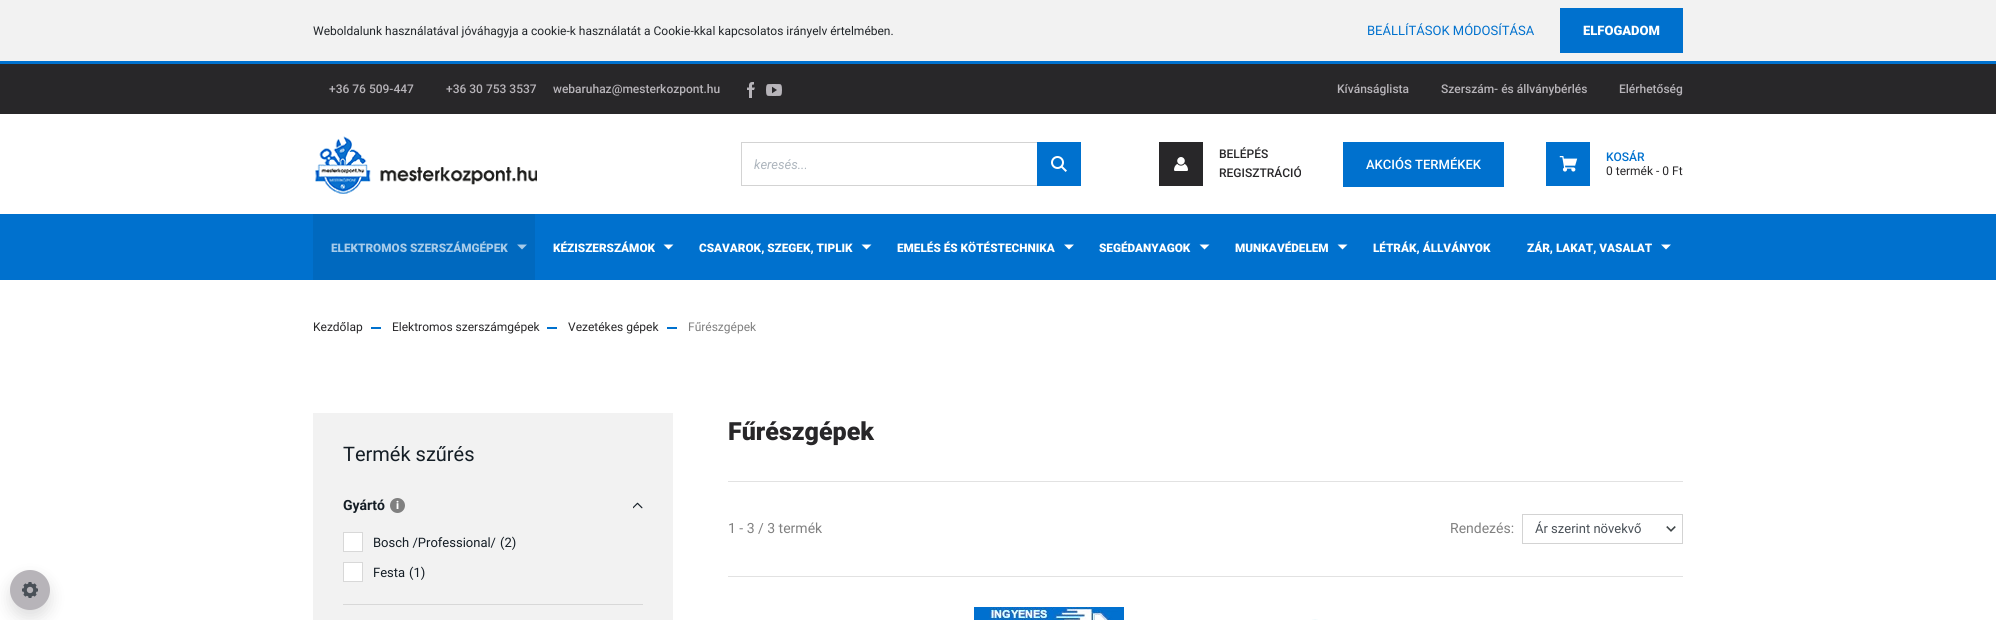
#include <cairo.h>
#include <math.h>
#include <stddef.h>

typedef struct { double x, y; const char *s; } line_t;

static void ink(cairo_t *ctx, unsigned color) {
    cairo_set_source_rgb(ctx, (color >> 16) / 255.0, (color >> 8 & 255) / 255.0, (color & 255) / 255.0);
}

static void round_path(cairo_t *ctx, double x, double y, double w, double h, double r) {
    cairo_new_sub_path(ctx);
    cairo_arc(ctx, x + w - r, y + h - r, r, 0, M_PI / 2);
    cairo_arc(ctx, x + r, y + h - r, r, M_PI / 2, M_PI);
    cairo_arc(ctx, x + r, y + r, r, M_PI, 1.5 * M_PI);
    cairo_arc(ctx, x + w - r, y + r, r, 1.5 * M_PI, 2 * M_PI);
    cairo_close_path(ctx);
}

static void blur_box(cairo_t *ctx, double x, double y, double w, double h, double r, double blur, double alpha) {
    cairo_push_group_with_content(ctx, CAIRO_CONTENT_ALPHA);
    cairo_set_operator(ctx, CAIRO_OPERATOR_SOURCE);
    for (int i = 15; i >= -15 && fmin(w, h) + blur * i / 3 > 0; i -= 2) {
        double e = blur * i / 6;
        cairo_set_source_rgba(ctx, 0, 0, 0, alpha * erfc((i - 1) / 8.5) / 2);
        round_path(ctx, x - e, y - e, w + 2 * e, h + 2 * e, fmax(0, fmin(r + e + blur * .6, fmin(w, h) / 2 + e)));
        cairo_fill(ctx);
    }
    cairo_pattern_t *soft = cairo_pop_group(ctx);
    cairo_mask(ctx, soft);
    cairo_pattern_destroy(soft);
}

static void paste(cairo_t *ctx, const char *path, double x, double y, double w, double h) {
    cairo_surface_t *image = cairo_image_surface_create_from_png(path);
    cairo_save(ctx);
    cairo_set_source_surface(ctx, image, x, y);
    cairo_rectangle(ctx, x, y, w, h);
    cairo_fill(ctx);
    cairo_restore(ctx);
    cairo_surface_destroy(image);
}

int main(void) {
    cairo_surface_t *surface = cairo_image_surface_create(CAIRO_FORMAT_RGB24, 1996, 620);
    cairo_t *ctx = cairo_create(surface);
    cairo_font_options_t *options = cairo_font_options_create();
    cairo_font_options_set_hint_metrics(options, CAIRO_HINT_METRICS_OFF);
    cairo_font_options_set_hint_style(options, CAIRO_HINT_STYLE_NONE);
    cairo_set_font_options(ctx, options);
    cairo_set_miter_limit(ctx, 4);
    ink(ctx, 0xFFFFFF);
    cairo_paint(ctx);
    ink(ctx, 0xF2F2F2);
    cairo_rectangle(ctx, 0, 0, 1996, 61);
    cairo_fill(ctx);
    cairo_select_font_face(ctx, "Roboto", CAIRO_FONT_SLANT_NORMAL, CAIRO_FONT_WEIGHT_NORMAL);
    cairo_set_font_size(ctx, 12);
    ink(ctx, 0x212529);
    cairo_move_to(ctx, 313, 35);
    cairo_show_text(ctx, "Weboldalunk használatával jóváhagyja a cookie-k használatát a Cookie-kkal kapcsolatos irányelv értelmében.");
    cairo_set_font_size(ctx, 13);
    ink(ctx, 0x0071CE);
    cairo_move_to(ctx, 1367, 35);
    cairo_show_text(ctx, "BEÁLLÍTÁSOK MÓDOSÍTÁSA");
    cairo_rectangle(ctx, 1560, 8, 123, 45);
    cairo_fill(ctx);
    cairo_select_font_face(ctx, "Roboto Black", CAIRO_FONT_SLANT_NORMAL, CAIRO_FONT_WEIGHT_NORMAL);
    ink(ctx, 0xFFFFFF);
    cairo_move_to(ctx, 1583, 35);
    cairo_show_text(ctx, "ELFOGADOM");
    ink(ctx, 0x282729);
    blur_box(ctx, 10, 578, 40, 40, 20, 8, 0.15);
    ink(ctx, 0xB7B4B9);
    cairo_arc(ctx, 30, 590, 20, 0, 2 * M_PI);
    cairo_fill(ctx);
    paste(ctx, "media/1.png", 22, 582, 16, 16);
    ink(ctx, 0x0071CE);
    cairo_rectangle(ctx, 0, 61, 1996, 3);
    cairo_fill(ctx);
    ink(ctx, 0x282729);
    cairo_rectangle(ctx, 0, 64, 1996, 50);
    cairo_fill(ctx);
    cairo_select_font_face(ctx, "Roboto Medium", CAIRO_FONT_SLANT_NORMAL, CAIRO_FONT_WEIGHT_NORMAL);
    cairo_set_font_size(ctx, 12);
    ink(ctx, 0xB7B4B9);
    {
        static const line_t items[] = {
            {329, 93, "+36 76 509-447"},
            {446, 93, "+36 30 753 3537"},
            {553, 93, "webaruhaz@mesterkozpont.hu"},
        };
        for (size_t i = 0; i < sizeof items / sizeof *items; i++) {
            cairo_move_to(ctx, items[i].x, items[i].y);
            cairo_show_text(ctx, items[i].s);
        }
    }
    paste(ctx, "media/2.png", 747, 82, 8, 16);
    paste(ctx, "media/3.png", 766, 84, 16, 12);
    {
        static const line_t items[] = {
            {1337, 93, "Kívánságlista"},
            {1441, 93, "Szerszám- és állványbérlés"},
            {1619, 93, "Elérhetőség"},
        };
        for (size_t i = 0; i < sizeof items / sizeof *items; i++) {
            cairo_move_to(ctx, items[i].x, items[i].y);
            cairo_show_text(ctx, items[i].s);
        }
    }
    paste(ctx, "media/4.png", 315, 136, 222, 58);
    cairo_rectangle(ctx, 741.5, 142.5, 339, 43);
    ink(ctx, 0xD3D3D3);
    cairo_set_line_width(ctx, 1);
    cairo_stroke(ctx);
    cairo_select_font_face(ctx, "Roboto", CAIRO_FONT_SLANT_ITALIC, CAIRO_FONT_WEIGHT_NORMAL);
    cairo_set_font_size(ctx, 13);
    ink(ctx, 0xADB5BD);
    cairo_move_to(ctx, 754, 169);
    cairo_show_text(ctx, "keresés...");
    ink(ctx, 0x0071CE);
    cairo_rectangle(ctx, 1037, 142, 44, 44);
    cairo_fill(ctx);
    paste(ctx, "media/5.png", 1051, 156, 16, 16);
    ink(ctx, 0x282729);
    cairo_rectangle(ctx, 1159, 142, 44, 44);
    cairo_fill(ctx);
    paste(ctx, "media/6.png", 1174, 157, 14, 14);
    cairo_select_font_face(ctx, "Roboto Medium", CAIRO_FONT_SLANT_NORMAL, CAIRO_FONT_WEIGHT_NORMAL);
    cairo_set_font_size(ctx, 12);
    cairo_move_to(ctx, 1219, 158);
    cairo_show_text(ctx, "BELÉPÉS");
    cairo_move_to(ctx, 1219, 177);
    cairo_show_text(ctx, "REGISZTRÁCIÓ");
    ink(ctx, 0x0071CE);
    cairo_rectangle(ctx, 1343, 142, 161, 45);
    cairo_fill(ctx);
    cairo_set_font_size(ctx, 13);
    ink(ctx, 0xFFFFFF);
    cairo_move_to(ctx, 1366, 169);
    cairo_show_text(ctx, "AKCIÓS TERMÉKEK");
    ink(ctx, 0x0071CE);
    cairo_rectangle(ctx, 1546, 142, 44, 44);
    cairo_fill(ctx);
    paste(ctx, "media/7.png", 1559, 156, 19, 16);
    cairo_set_font_size(ctx, 12);
    cairo_move_to(ctx, 1606, 161);
    cairo_show_text(ctx, "KOSÁR");
    cairo_select_font_face(ctx, "Roboto", CAIRO_FONT_SLANT_NORMAL, CAIRO_FONT_WEIGHT_NORMAL);
    ink(ctx, 0x282729);
    cairo_move_to(ctx, 1606, 175);
    cairo_show_text(ctx, "0 termék - 0 Ft");
    ink(ctx, 0x0071CE);
    cairo_rectangle(ctx, 0, 214, 1996, 66);
    cairo_fill(ctx);
    ink(ctx, 0x0069BF);
    cairo_rectangle(ctx, 313, 214, 222, 66);
    cairo_fill(ctx);
    cairo_select_font_face(ctx, "Roboto Black", CAIRO_FONT_SLANT_NORMAL, CAIRO_FONT_WEIGHT_NORMAL);
    cairo_set_font_size(ctx, 11.75);
    ink(ctx, 0xA6CBE9);
    cairo_move_to(ctx, 331, 252);
    cairo_show_text(ctx, "ELEKTROMOS SZERSZÁMGÉPEK");
    cairo_new_path(ctx);
    cairo_move_to(ctx, 517, 244.5);
    cairo_line_to(ctx, 527, 244.5);
    cairo_line_to(ctx, 522, 249.5);
    cairo_close_path(ctx);
    cairo_fill(ctx);
    ink(ctx, 0xFFFFFF);
    cairo_move_to(ctx, 553, 252);
    cairo_show_text(ctx, "KÉZISZERSZÁMOK");
    cairo_new_path(ctx);
    cairo_move_to(ctx, 663.5, 244.5);
    cairo_line_to(ctx, 673.5, 244.5);
    cairo_line_to(ctx, 668.5, 249.5);
    cairo_close_path(ctx);
    cairo_fill(ctx);
    cairo_move_to(ctx, 699, 252);
    cairo_show_text(ctx, "CSAVAROK, SZEGEK, TIPLIK");
    cairo_new_path(ctx);
    cairo_move_to(ctx, 861.5, 244.5);
    cairo_line_to(ctx, 871.5, 244.5);
    cairo_line_to(ctx, 866.5, 249.5);
    cairo_close_path(ctx);
    cairo_fill(ctx);
    cairo_move_to(ctx, 897, 252);
    cairo_show_text(ctx, "EMELÉS ÉS KÖTÉSTECHNIKA");
    cairo_new_path(ctx);
    cairo_move_to(ctx, 1064, 244.5);
    cairo_line_to(ctx, 1074, 244.5);
    cairo_line_to(ctx, 1069, 249.5);
    cairo_close_path(ctx);
    cairo_fill(ctx);
    cairo_move_to(ctx, 1099, 252);
    cairo_show_text(ctx, "SEGÉDANYAGOK");
    cairo_new_path(ctx);
    cairo_move_to(ctx, 1199.5, 244.5);
    cairo_line_to(ctx, 1209.5, 244.5);
    cairo_line_to(ctx, 1204.5, 249.5);
    cairo_close_path(ctx);
    cairo_fill(ctx);
    cairo_move_to(ctx, 1235, 252);
    cairo_show_text(ctx, "MUNKAVÉDELEM");
    cairo_new_path(ctx);
    cairo_move_to(ctx, 1337.5, 244.5);
    cairo_line_to(ctx, 1347.5, 244.5);
    cairo_line_to(ctx, 1342.5, 249.5);
    cairo_close_path(ctx);
    cairo_fill(ctx);
    cairo_move_to(ctx, 1373, 252);
    cairo_show_text(ctx, "LÉTRÁK, ÁLLVÁNYOK");
    cairo_move_to(ctx, 1527, 252);
    cairo_show_text(ctx, "ZÁR, LAKAT, VASALAT");
    cairo_new_path(ctx);
    cairo_move_to(ctx, 1661, 244.5);
    cairo_line_to(ctx, 1671, 244.5);
    cairo_line_to(ctx, 1666, 249.5);
    cairo_close_path(ctx);
    cairo_fill(ctx);
    cairo_select_font_face(ctx, "Roboto", CAIRO_FONT_SLANT_NORMAL, CAIRO_FONT_WEIGHT_NORMAL);
    cairo_set_font_size(ctx, 12);
    ink(ctx, 0x282729);
    cairo_move_to(ctx, 313, 331);
    cairo_show_text(ctx, "Kezdőlap");
    ink(ctx, 0x0071CE);
    cairo_rectangle(ctx, 371, 327, 10, 2);
    cairo_fill(ctx);
    ink(ctx, 0x282729);
    cairo_move_to(ctx, 392, 331);
    cairo_show_text(ctx, "Elektromos szerszámgépek");
    ink(ctx, 0x0071CE);
    cairo_rectangle(ctx, 547, 327, 10, 2);
    cairo_fill(ctx);
    ink(ctx, 0x282729);
    cairo_move_to(ctx, 568, 331);
    cairo_show_text(ctx, "Vezetékes gépek");
    ink(ctx, 0x0071CE);
    cairo_rectangle(ctx, 667, 327, 10, 2);
    cairo_fill(ctx);
    ink(ctx, 0x808080);
    cairo_move_to(ctx, 688, 331);
    cairo_show_text(ctx, "Fűrészgépek");
    ink(ctx, 0xF2F2F2);
    cairo_rectangle(ctx, 313, 413, 360, 207);
    cairo_fill(ctx);
    cairo_set_font_size(ctx, 20);
    ink(ctx, 0x151E26);
    cairo_move_to(ctx, 343, 461);
    cairo_show_text(ctx, "Termék szűrés");
    ink(ctx, 0xD8D8D8);
    cairo_rectangle(ctx, 343, 604, 300, 1);
    cairo_fill(ctx);
    cairo_select_font_face(ctx, "Roboto", CAIRO_FONT_SLANT_NORMAL, CAIRO_FONT_WEIGHT_BOLD);
    cairo_set_font_size(ctx, 14);
    ink(ctx, 0x151E26);
    cairo_move_to(ctx, 343, 510);
    cairo_show_text(ctx, "Gyártó");
    ink(ctx, 0x808080);
    cairo_new_path(ctx);
    cairo_arc(ctx, 397.5, 505.5, 7.5, 0, 2 * M_PI);
    cairo_fill(ctx);
    cairo_select_font_face(ctx, "Roboto Black", CAIRO_FONT_SLANT_NORMAL, CAIRO_FONT_WEIGHT_NORMAL);
    cairo_set_font_size(ctx, 11);
    ink(ctx, 0xFFFFFF);
    cairo_move_to(ctx, 396, 509);
    cairo_show_text(ctx, "i");
    paste(ctx, "media/8.png", 633, 502, 10, 7);
    cairo_rectangle(ctx, 343.5, 532.5, 19, 19);
    cairo_fill_preserve(ctx);
    ink(ctx, 0xD8D8D8);
    cairo_stroke(ctx);
    cairo_select_font_face(ctx, "Roboto", CAIRO_FONT_SLANT_NORMAL, CAIRO_FONT_WEIGHT_NORMAL);
    cairo_set_font_size(ctx, 13);
    ink(ctx, 0x151E26);
    cairo_move_to(ctx, 373, 547);
    cairo_show_text(ctx, "Bosch /Professional/");
    cairo_move_to(ctx, 500, 547);
    cairo_show_text(ctx, "(2)");
    ink(ctx, 0xFFFFFF);
    cairo_rectangle(ctx, 343.5, 562.5, 19, 19);
    cairo_fill_preserve(ctx);
    ink(ctx, 0xD8D8D8);
    cairo_stroke(ctx);
    ink(ctx, 0x151E26);
    cairo_move_to(ctx, 373, 577);
    cairo_show_text(ctx, "Festa");
    cairo_move_to(ctx, 409, 577);
    cairo_show_text(ctx, "(1)");
    cairo_select_font_face(ctx, "Roboto Black", CAIRO_FONT_SLANT_NORMAL, CAIRO_FONT_WEIGHT_NORMAL);
    cairo_set_font_size(ctx, 25);
    ink(ctx, 0x282729);
    cairo_move_to(ctx, 728, 440);
    cairo_show_text(ctx, "Fűrészgépek");
    ink(ctx, 0xE2E2E2);
    cairo_rectangle(ctx, 728, 481, 955, 1);
    cairo_fill(ctx);
    cairo_rectangle(ctx, 728, 576, 955, 1);
    cairo_fill(ctx);
    cairo_select_font_face(ctx, "Roboto", CAIRO_FONT_SLANT_NORMAL, CAIRO_FONT_WEIGHT_NORMAL);
    cairo_set_font_size(ctx, 14);
    ink(ctx, 0x808080);
    cairo_move_to(ctx, 728, 533);
    cairo_show_text(ctx, "1 - 3 / 3 termék");
    cairo_move_to(ctx, 1450, 533);
    cairo_show_text(ctx, "Rendezés:");
    paste(ctx, "media/9.png", 1666, 526, 10, 6);
    cairo_rectangle(ctx, 1522.5, 514.5, 160, 29);
    ink(ctx, 0xD3D3D3);
    cairo_stroke(ctx);
    cairo_set_font_size(ctx, 13);
    ink(ctx, 0x495057);
    cairo_move_to(ctx, 1535, 533);
    cairo_show_text(ctx, "Ár szerint növekvő");
    paste(ctx, "media/10.png", 974, 607, 150, 13);
    paste(ctx, "media/11.png", 1312, 619, 6, 1);
    cairo_surface_write_to_png(surface, "image.png");
    cairo_font_options_destroy(options);
    cairo_destroy(ctx);
    cairo_surface_destroy(surface);
    return 0;
}
